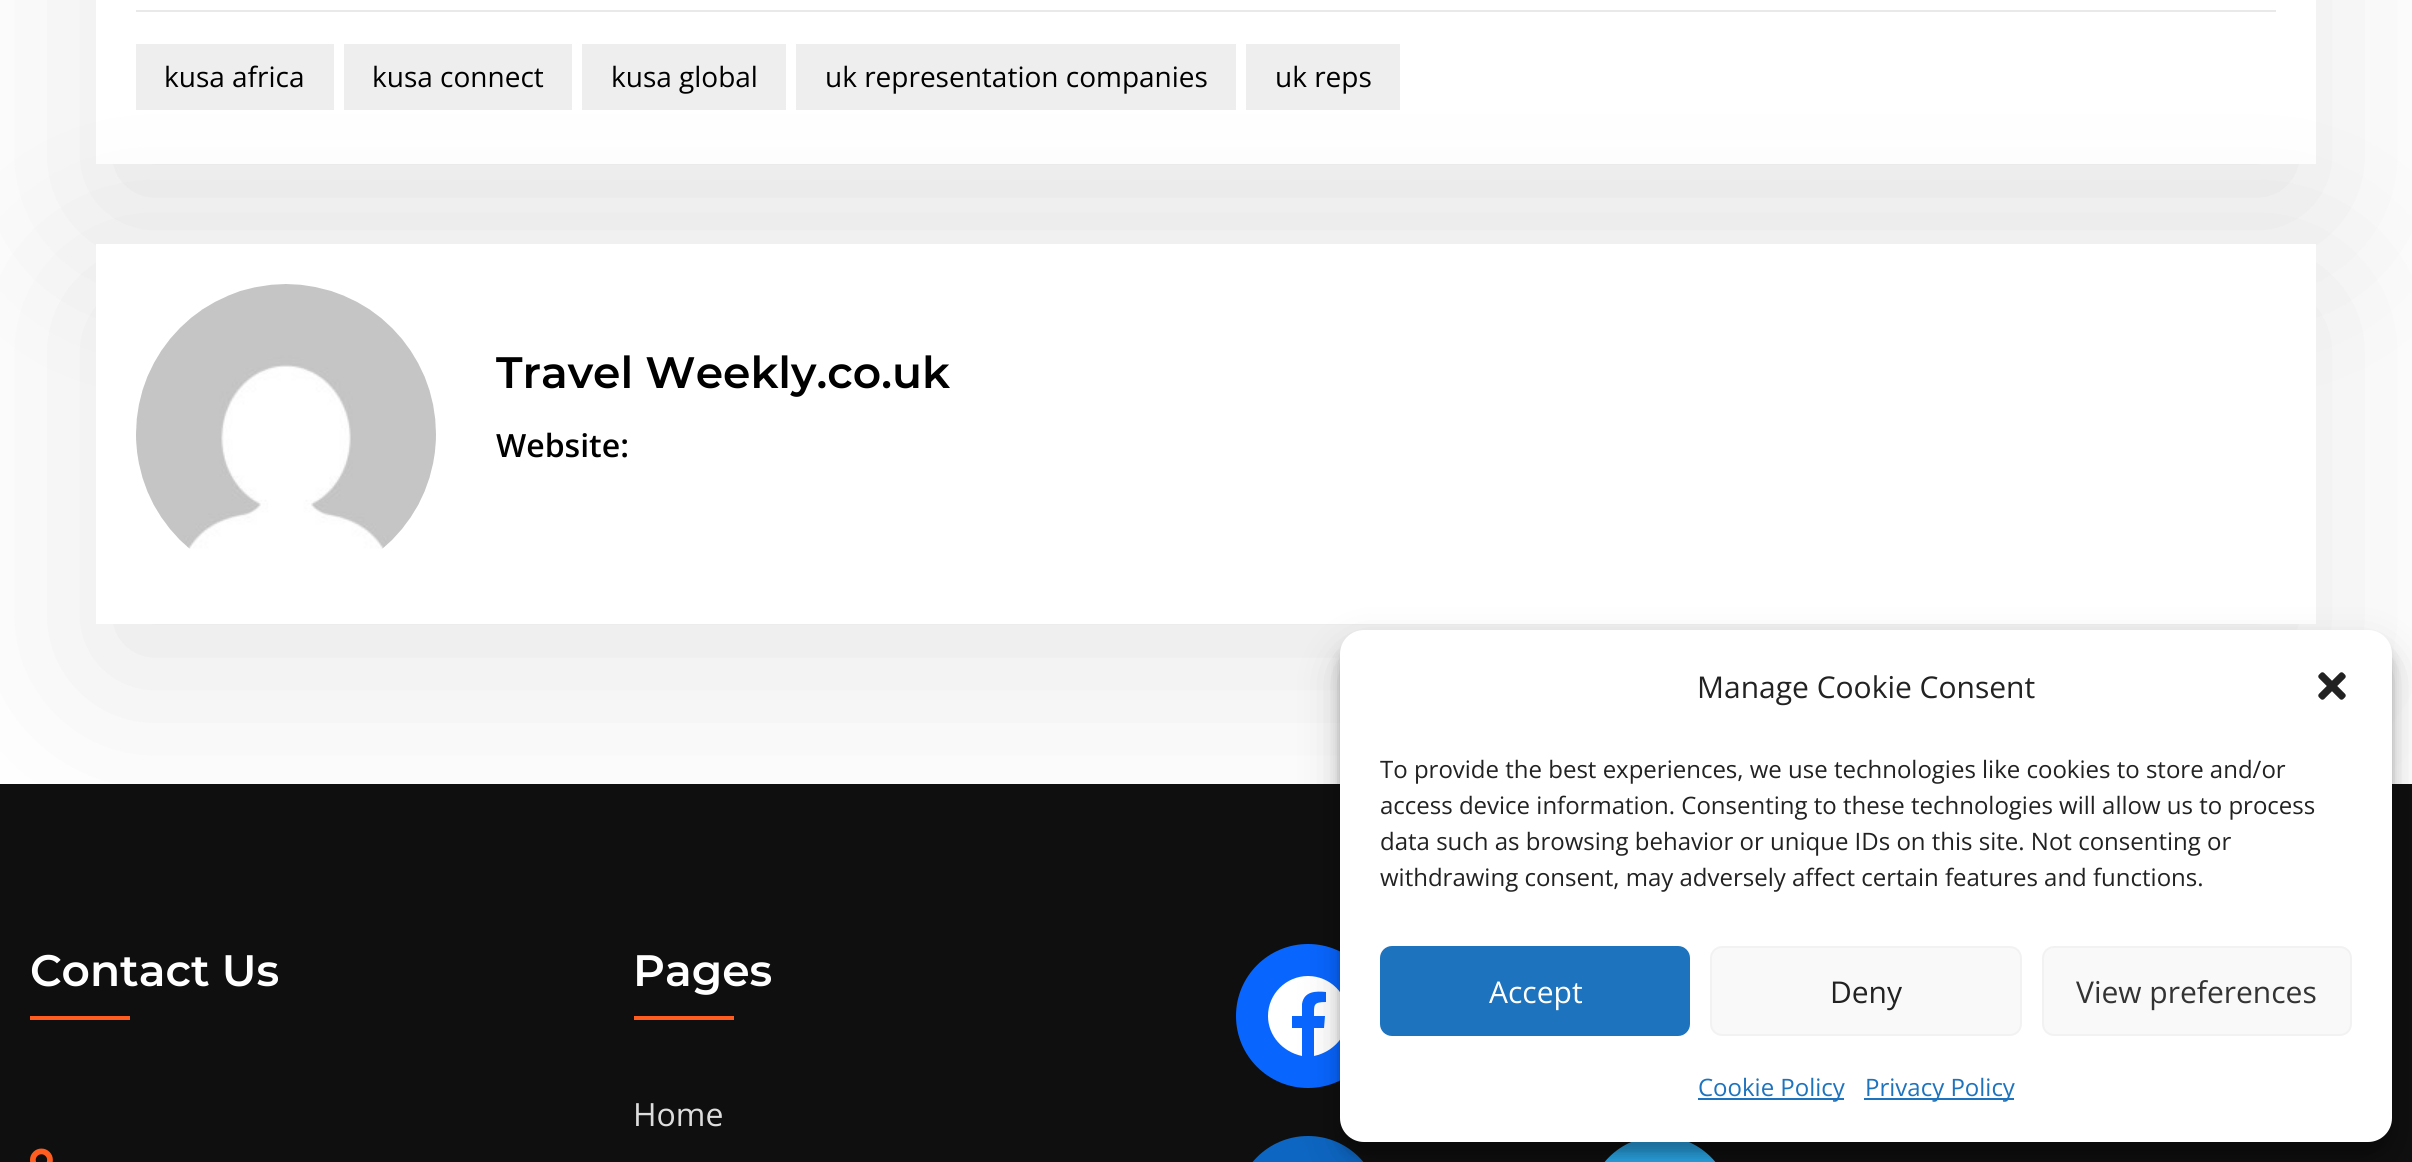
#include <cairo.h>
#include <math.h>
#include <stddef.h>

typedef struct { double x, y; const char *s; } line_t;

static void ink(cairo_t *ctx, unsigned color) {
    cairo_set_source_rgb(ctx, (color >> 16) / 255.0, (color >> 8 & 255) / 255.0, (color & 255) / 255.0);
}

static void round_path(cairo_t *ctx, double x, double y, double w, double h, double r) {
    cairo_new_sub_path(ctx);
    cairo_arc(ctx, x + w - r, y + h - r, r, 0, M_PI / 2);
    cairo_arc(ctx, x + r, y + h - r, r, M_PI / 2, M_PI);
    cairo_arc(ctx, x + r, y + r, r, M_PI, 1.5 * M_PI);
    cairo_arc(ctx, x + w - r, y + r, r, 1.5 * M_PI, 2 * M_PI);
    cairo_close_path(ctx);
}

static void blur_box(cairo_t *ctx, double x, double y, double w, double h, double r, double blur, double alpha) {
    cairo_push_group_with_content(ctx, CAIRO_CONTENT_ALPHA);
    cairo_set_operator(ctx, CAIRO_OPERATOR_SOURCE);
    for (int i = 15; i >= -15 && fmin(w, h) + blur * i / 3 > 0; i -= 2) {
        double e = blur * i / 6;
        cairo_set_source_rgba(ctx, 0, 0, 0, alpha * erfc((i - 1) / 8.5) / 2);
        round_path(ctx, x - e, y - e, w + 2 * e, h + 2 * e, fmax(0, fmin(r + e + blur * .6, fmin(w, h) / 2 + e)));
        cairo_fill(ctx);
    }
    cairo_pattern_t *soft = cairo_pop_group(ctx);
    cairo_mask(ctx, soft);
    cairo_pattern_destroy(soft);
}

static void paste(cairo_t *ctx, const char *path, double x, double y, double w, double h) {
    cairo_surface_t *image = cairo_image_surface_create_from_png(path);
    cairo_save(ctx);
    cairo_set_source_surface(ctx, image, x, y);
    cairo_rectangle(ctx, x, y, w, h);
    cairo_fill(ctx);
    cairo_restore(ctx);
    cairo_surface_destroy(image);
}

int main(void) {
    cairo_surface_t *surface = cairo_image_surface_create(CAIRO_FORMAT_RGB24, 2412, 1162);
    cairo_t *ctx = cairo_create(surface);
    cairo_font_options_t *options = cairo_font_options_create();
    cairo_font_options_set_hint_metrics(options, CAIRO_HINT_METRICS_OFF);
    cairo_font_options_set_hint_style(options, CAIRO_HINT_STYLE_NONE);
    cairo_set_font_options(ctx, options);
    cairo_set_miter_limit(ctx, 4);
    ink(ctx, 0xFFFFFF);
    cairo_paint(ctx);
    cairo_save(ctx);
    cairo_set_fill_rule(ctx, CAIRO_FILL_RULE_EVEN_ODD);
    cairo_new_path(ctx);
    cairo_move_to(ctx, 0, 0);
    cairo_line_to(ctx, 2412, 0);
    cairo_line_to(ctx, 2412, 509);
    cairo_line_to(ctx, 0, 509);
    cairo_close_path(ctx);
    cairo_move_to(ctx, 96, -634);
    cairo_line_to(ctx, 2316, -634);
    cairo_line_to(ctx, 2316, 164);
    cairo_line_to(ctx, 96, 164);
    cairo_close_path(ctx);
    cairo_clip(ctx);
    ink(ctx, 0x000000);
    blur_box(ctx, 96, -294, 2220, 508, 0, 98, 0.1);
    cairo_restore(ctx);
    ink(ctx, 0xE9E9E9);
    cairo_rectangle(ctx, 136, 10, 2140, 2);
    cairo_fill(ctx);
    ink(ctx, 0x000000);
    blur_box(ctx, 96, 294, 2220, 380, 0, 98, 0.1);
    ink(ctx, 0xEEEEEE);
    cairo_rectangle(ctx, 136, 44, 198, 66);
    cairo_fill(ctx);
    cairo_select_font_face(ctx, "Open Sans", CAIRO_FONT_SLANT_NORMAL, CAIRO_FONT_WEIGHT_NORMAL);
    cairo_set_font_size(ctx, 28);
    ink(ctx, 0x000000);
    cairo_move_to(ctx, 164, 87);
    cairo_show_text(ctx, "kusa africa");
    ink(ctx, 0xEEEEEE);
    cairo_rectangle(ctx, 344, 44, 228, 66);
    cairo_fill(ctx);
    ink(ctx, 0x000000);
    cairo_move_to(ctx, 372, 87);
    cairo_show_text(ctx, "kusa connect");
    ink(ctx, 0xEEEEEE);
    cairo_rectangle(ctx, 582, 44, 204, 66);
    cairo_fill(ctx);
    ink(ctx, 0x000000);
    cairo_move_to(ctx, 611, 87);
    cairo_show_text(ctx, "kusa global");
    ink(ctx, 0xEEEEEE);
    cairo_rectangle(ctx, 796, 44, 440, 66);
    cairo_fill(ctx);
    ink(ctx, 0x000000);
    cairo_move_to(ctx, 825, 87);
    cairo_show_text(ctx, "uk representation companies");
    ink(ctx, 0xEEEEEE);
    cairo_rectangle(ctx, 1246, 44, 154, 66);
    cairo_fill(ctx);
    ink(ctx, 0x000000);
    cairo_move_to(ctx, 1275, 87);
    cairo_show_text(ctx, "uk reps");
    ink(ctx, 0xFFFFFF);
    cairo_rectangle(ctx, 96, 244, 2220, 380);
    cairo_fill(ctx);
    paste(ctx, "media/1.png", 136, 284, 300, 265);
    cairo_select_font_face(ctx, "Montserrat SemiBold", CAIRO_FONT_SLANT_NORMAL, CAIRO_FONT_WEIGHT_NORMAL);
    cairo_set_font_size(ctx, 44);
    ink(ctx, 0x000000);
    cairo_move_to(ctx, 496, 388);
    cairo_show_text(ctx, "Travel Weekly.co.uk");
    cairo_select_font_face(ctx, "Open Sans SemiBold", CAIRO_FONT_SLANT_NORMAL, CAIRO_FONT_WEIGHT_NORMAL);
    cairo_set_font_size(ctx, 32);
    cairo_move_to(ctx, 496, 457);
    cairo_show_text(ctx, "Website:");
    ink(ctx, 0x0F0F0F);
    cairo_rectangle(ctx, 0, 784, 2412, 378);
    cairo_fill(ctx);
    cairo_select_font_face(ctx, "Montserrat SemiBold", CAIRO_FONT_SLANT_NORMAL, CAIRO_FONT_WEIGHT_NORMAL);
    cairo_set_font_size(ctx, 44);
    ink(ctx, 0xFFFFFF);
    cairo_move_to(ctx, 30, 986);
    cairo_show_text(ctx, "Contact Us");
    ink(ctx, 0xFF5D20);
    cairo_rectangle(ctx, 30, 1016, 100, 4);
    cairo_fill(ctx);
    paste(ctx, "media/2.png", 30, 1148, 23, 14);
    ink(ctx, 0xFFFFFF);
    cairo_move_to(ctx, 633, 986);
    cairo_show_text(ctx, "Pages");
    ink(ctx, 0xFF5D20);
    cairo_rectangle(ctx, 634, 1016, 100, 4);
    cairo_fill(ctx);
    cairo_select_font_face(ctx, "Open Sans", CAIRO_FONT_SLANT_NORMAL, CAIRO_FONT_WEIGHT_NORMAL);
    cairo_set_font_size(ctx, 32);
    ink(ctx, 0xDDDDDD);
    cairo_move_to(ctx, 633, 1126);
    cairo_show_text(ctx, "Home");
    ink(ctx, 0x0866FF);
    cairo_new_path(ctx);
    cairo_arc(ctx, 1308, 1016, 72, 0, 2 * M_PI);
    cairo_fill(ctx);
    ink(ctx, 0xFFFFFF);
    cairo_new_path(ctx);
    cairo_move_to(ctx, 1308, 976);
    cairo_curve_to(ctx, 1286, 976, 1268, 994, 1268, 1016);
    cairo_curve_to(ctx, 1268, 1036, 1283, 1052, 1302, 1056);
    cairo_line_to(ctx, 1302, 1028);
    cairo_line_to(ctx, 1292, 1028);
    cairo_line_to(ctx, 1292, 1016);
    cairo_line_to(ctx, 1302, 1016);
    cairo_line_to(ctx, 1302, 1004);
    cairo_curve_to(ctx, 1304, 991, 1316, 991, 1326, 992);
    cairo_line_to(ctx, 1326, 1002);
    cairo_curve_to(ctx, 1313, 1002, 1314, 1005, 1314, 1016);
    cairo_line_to(ctx, 1325, 1016);
    cairo_line_to(ctx, 1324, 1028);
    cairo_line_to(ctx, 1314, 1028);
    cairo_line_to(ctx, 1314, 1056);
    cairo_curve_to(ctx, 1333, 1052, 1348, 1036, 1348, 1016);
    cairo_curve_to(ctx, 1348, 994, 1330, 976, 1308, 976);
    cairo_close_path(ctx);
    cairo_fill(ctx);
    ink(ctx, 0x0D66C2);
    round_path(ctx, 1236, 1136, 144, 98, 72);
    cairo_fill(ctx);
    ink(ctx, 0x2AABEE);
    round_path(ctx, 1588, 1136, 144, 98, 72);
    cairo_fill(ctx);
    ink(ctx, 0x000000);
    blur_box(ctx, 1340, 642, 1052, 512, 24, 6, 0.23);
    blur_box(ctx, 1340, 650, 1052, 512, 24, 20, 0.19);
    ink(ctx, 0xFFFFFF);
    round_path(ctx, 1340, 630, 1052, 512, 24);
    cairo_fill(ctx);
    cairo_set_font_size(ctx, 30);
    ink(ctx, 0x222222);
    cairo_move_to(ctx, 1697, 698);
    cairo_show_text(ctx, "Manage Cookie Consent");
    paste(ctx, "media/3.png", 2318, 672, 28, 28);
    cairo_set_font_size(ctx, 24);
    {
        static const line_t items[] = {
            {1380, 778, "To provide the best experiences, we use technologies like cookies to store and/or"},
            {1380, 814, "access device information. Consenting to these technologies will allow us to process"},
            {1380, 850, "data such as browsing behavior or unique IDs on this site. Not consenting or"},
            {1380, 886, "withdrawing consent, may adversely affect certain features and functions."},
        };
        for (size_t i = 0; i < sizeof items / sizeof *items; i++) {
            cairo_move_to(ctx, items[i].x, items[i].y);
            cairo_show_text(ctx, items[i].s);
        }
    }
    ink(ctx, 0x1E73BE);
    round_path(ctx, 1381, 947, 308, 88, 11);
    cairo_fill_preserve(ctx);
    cairo_stroke(ctx);
    cairo_set_font_size(ctx, 30);
    ink(ctx, 0xFFFFFF);
    cairo_move_to(ctx, 1489, 1003);
    cairo_show_text(ctx, "Accept");
    ink(ctx, 0xF9F9F9);
    round_path(ctx, 1711, 947, 310, 88, 11);
    cairo_fill_preserve(ctx);
    ink(ctx, 0xF2F2F2);
    cairo_stroke(ctx);
    ink(ctx, 0x222222);
    cairo_move_to(ctx, 1830, 1003);
    cairo_show_text(ctx, "Deny");
    ink(ctx, 0xF9F9F9);
    round_path(ctx, 2043, 947, 308, 88, 11);
    cairo_fill_preserve(ctx);
    ink(ctx, 0xF2F2F2);
    cairo_stroke(ctx);
    ink(ctx, 0x333333);
    cairo_move_to(ctx, 2076, 1003);
    cairo_show_text(ctx, "View preferences");
    ink(ctx, 0x1E73BE);
    cairo_rectangle(ctx, 1698, 1098, 146, 2);
    cairo_fill(ctx);
    cairo_set_font_size(ctx, 24);
    cairo_move_to(ctx, 1698, 1096);
    cairo_show_text(ctx, "Cookie Policy");
    cairo_rectangle(ctx, 1864, 1098, 150, 2);
    cairo_fill(ctx);
    cairo_move_to(ctx, 1865, 1096);
    cairo_show_text(ctx, "Privacy Policy");
    cairo_surface_write_to_png(surface, "image.png");
    cairo_font_options_destroy(options);
    cairo_destroy(ctx);
    cairo_surface_destroy(surface);
    return 0;
}
